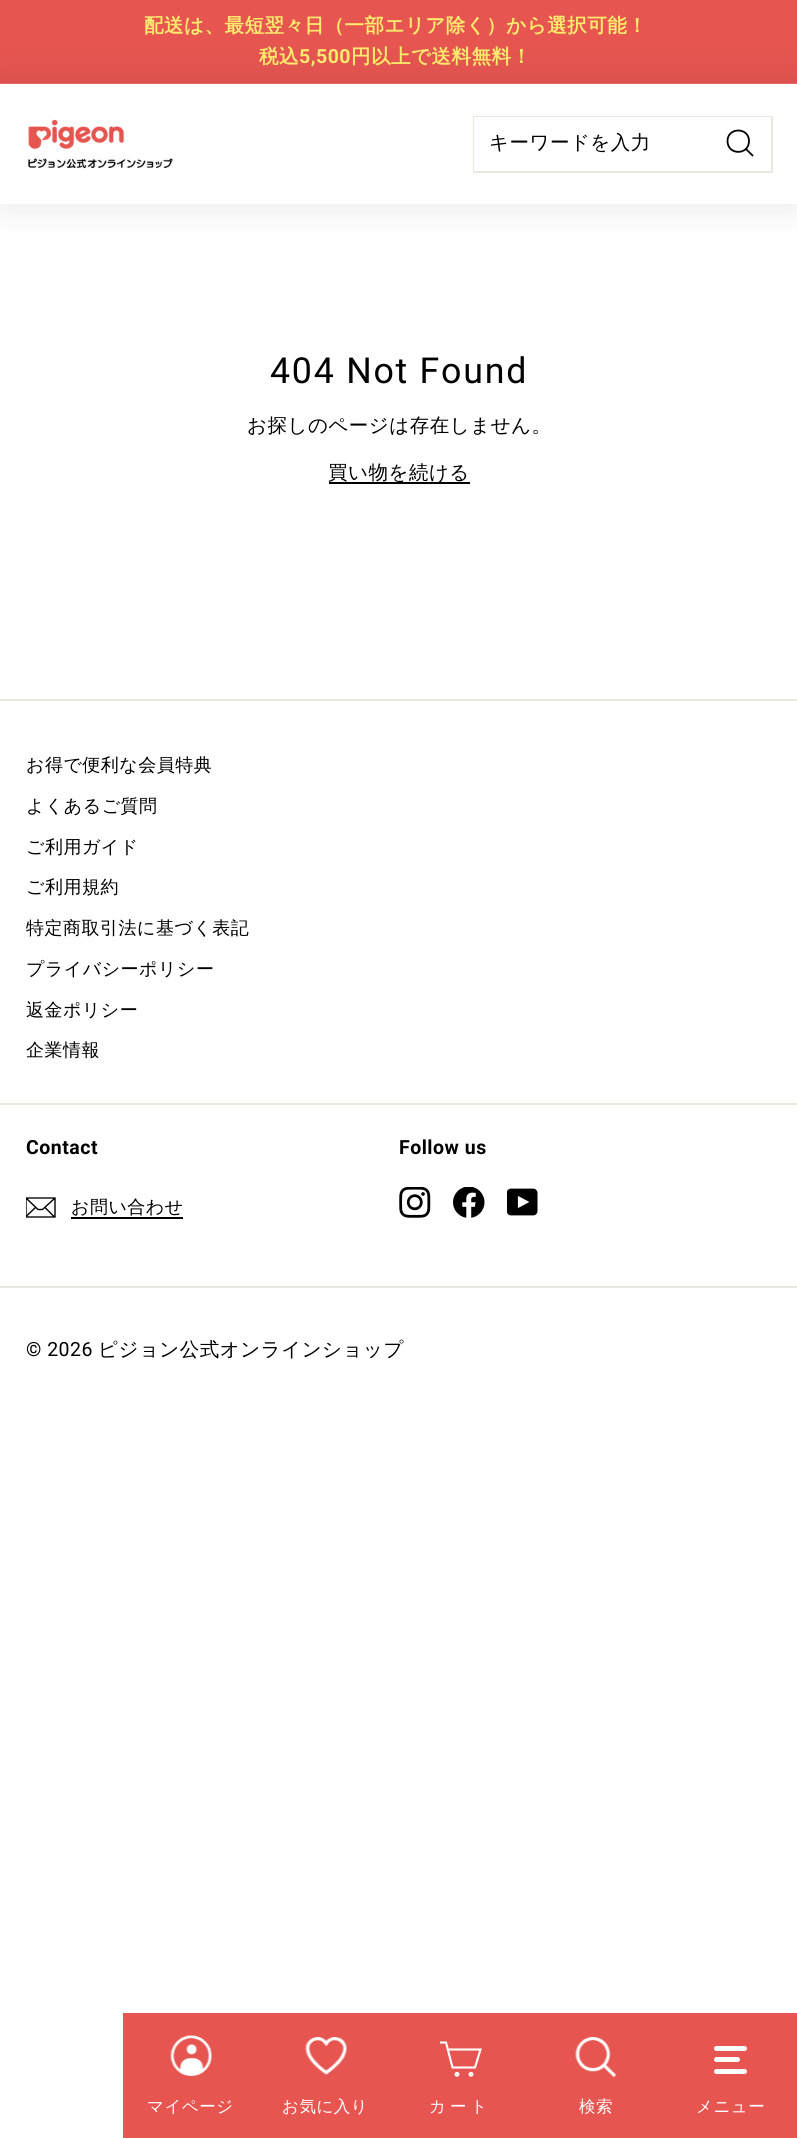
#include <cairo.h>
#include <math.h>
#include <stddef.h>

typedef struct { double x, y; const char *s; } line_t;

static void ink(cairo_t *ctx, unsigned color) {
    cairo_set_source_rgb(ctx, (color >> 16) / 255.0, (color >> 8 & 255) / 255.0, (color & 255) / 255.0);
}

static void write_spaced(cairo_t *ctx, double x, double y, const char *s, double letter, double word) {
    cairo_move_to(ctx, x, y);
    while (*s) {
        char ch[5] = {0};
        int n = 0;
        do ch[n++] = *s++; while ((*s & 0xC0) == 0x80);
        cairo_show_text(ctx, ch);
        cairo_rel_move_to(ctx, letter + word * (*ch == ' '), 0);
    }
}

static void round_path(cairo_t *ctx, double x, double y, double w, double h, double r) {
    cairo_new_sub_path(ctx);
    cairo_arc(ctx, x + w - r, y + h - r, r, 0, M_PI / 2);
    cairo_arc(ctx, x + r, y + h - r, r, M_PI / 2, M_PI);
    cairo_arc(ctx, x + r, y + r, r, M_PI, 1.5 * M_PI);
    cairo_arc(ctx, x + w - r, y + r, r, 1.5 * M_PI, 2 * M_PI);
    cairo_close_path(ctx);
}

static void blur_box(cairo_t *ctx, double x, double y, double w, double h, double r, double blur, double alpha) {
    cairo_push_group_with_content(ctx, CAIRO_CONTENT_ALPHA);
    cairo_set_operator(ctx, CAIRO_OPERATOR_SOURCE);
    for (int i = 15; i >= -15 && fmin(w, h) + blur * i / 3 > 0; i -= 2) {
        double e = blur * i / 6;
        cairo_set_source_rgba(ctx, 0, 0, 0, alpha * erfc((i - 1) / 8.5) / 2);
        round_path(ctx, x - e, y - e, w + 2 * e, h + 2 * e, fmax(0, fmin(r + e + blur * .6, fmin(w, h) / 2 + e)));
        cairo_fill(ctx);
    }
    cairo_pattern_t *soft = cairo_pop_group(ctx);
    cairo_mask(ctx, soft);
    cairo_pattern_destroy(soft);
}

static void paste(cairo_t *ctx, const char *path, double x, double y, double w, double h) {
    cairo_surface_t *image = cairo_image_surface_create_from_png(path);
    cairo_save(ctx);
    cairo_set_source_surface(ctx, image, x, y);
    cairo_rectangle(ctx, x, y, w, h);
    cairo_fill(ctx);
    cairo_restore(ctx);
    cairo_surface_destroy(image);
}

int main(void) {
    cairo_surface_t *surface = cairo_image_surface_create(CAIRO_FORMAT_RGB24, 797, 2138);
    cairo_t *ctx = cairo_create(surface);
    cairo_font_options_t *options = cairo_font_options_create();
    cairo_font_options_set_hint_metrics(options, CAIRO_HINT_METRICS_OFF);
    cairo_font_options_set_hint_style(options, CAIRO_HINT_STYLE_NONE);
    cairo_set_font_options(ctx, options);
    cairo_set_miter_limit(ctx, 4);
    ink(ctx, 0xFFFFFF);
    cairo_paint(ctx);
    ink(ctx, 0xE65550);
    cairo_rectangle(ctx, 0, 0, 797, 83);
    cairo_fill(ctx);
    ink(ctx, 0xEA6F6A);
    cairo_rectangle(ctx, 0, 83, 797, 1);
    cairo_fill(ctx);
    cairo_select_font_face(ctx, "WenQuanYi Zen Hei", CAIRO_FONT_SLANT_NORMAL, CAIRO_FONT_WEIGHT_BOLD);
    cairo_set_font_size(ctx, 19.5);
    ink(ctx, 0xFFEB6D);
    write_spaced(ctx, 144, 32, "配送は、最短翌々日（一部エリア除く）から選択可能！", 0.5, 0);
    write_spaced(ctx, 259, 63, "税込", 0.5, 0);
    cairo_select_font_face(ctx, "Roboto", CAIRO_FONT_SLANT_NORMAL, CAIRO_FONT_WEIGHT_BOLD);
    write_spaced(ctx, 299, 63, "5,500", 0.5, 0);
    cairo_select_font_face(ctx, "WenQuanYi Zen Hei", CAIRO_FONT_SLANT_NORMAL, CAIRO_FONT_WEIGHT_BOLD);
    write_spaced(ctx, 351, 63, "円以上で送料無料！", 0.5, 0);
    cairo_save(ctx);
    cairo_set_fill_rule(ctx, CAIRO_FILL_RULE_EVEN_ODD);
    cairo_new_path(ctx);
    cairo_move_to(ctx, 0, 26);
    cairo_line_to(ctx, 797, 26);
    cairo_line_to(ctx, 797, 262);
    cairo_line_to(ctx, 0, 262);
    cairo_close_path(ctx);
    cairo_move_to(ctx, 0, 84);
    cairo_line_to(ctx, 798, 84);
    cairo_line_to(ctx, 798, 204);
    cairo_line_to(ctx, 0, 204);
    cairo_close_path(ctx);
    cairo_clip(ctx);
    ink(ctx, 0x000000);
    blur_box(ctx, 0, 84, 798, 120, 0, 19, 0.1);
    cairo_restore(ctx);
    paste(ctx, "media/1.png", 28, 119, 145, 50);
    cairo_rectangle(ctx, 474, 117, 298, 55);
    ink(ctx, 0xE8E8E1);
    cairo_stroke(ctx);
    ink(ctx, 0xFFFFFF);
    cairo_rectangle(ctx, 474, 117, 297, 54);
    cairo_fill(ctx);
    cairo_select_font_face(ctx, "WenQuanYi Zen Hei Medium", CAIRO_FONT_SLANT_NORMAL, CAIRO_FONT_WEIGHT_NORMAL);
    ink(ctx, 0x000000);
    write_spaced(ctx, 489, 149, "キーワードを入力", 0.5, 0);
    cairo_new_path(ctx);
    cairo_move_to(ctx, 749, 141);
    cairo_curve_to(ctx, 749, 155.5, 727.5, 155.5, 727.5, 141);
    cairo_curve_to(ctx, 727.5, 127, 749, 127, 749, 141);
    cairo_close_path(ctx);
    cairo_move_to(ctx, 753, 156);
    cairo_line_to(ctx, 746, 149);
    cairo_set_line_width(ctx, 1.8);
    cairo_stroke(ctx);
    cairo_select_font_face(ctx, "Roboto", CAIRO_FONT_SLANT_NORMAL, CAIRO_FONT_WEIGHT_NORMAL);
    cairo_set_font_size(ctx, 35.75);
    write_spaced(ctx, 270, 383, "404 Not Found", 1.75, 0);
    cairo_select_font_face(ctx, "WenQuanYi Zen Hei Medium", CAIRO_FONT_SLANT_NORMAL, CAIRO_FONT_WEIGHT_NORMAL);
    cairo_set_font_size(ctx, 19.5);
    write_spaced(ctx, 247, 432, "お探しのページは存在しません。", 0.5, 0);
    cairo_rectangle(ctx, 329, 482, 141, 2);
    cairo_fill(ctx);
    write_spaced(ctx, 328, 479, "買い物を続ける", 0.5, 0);
    ink(ctx, 0xE8E8E1);
    cairo_rectangle(ctx, 0, 699, 797, 2);
    cairo_fill(ctx);
    cairo_set_font_size(ctx, 18);
    ink(ctx, 0x000000);
    {
        static const line_t items[] = {
            {26, 771, "お得で便利な会員特典"},
            {26, 812, "よくあるご質問"},
            {26, 853, "ご利用ガイド"},
            {26, 893, "ご利用規約"},
            {26, 934, "特定商取引法に基づく表記"},
            {26, 975, "プライバシーポリシー"},
            {26, 1016, "返金ポリシー"},
            {26, 1056, "企業情報"},
        };
        for (size_t i = 0; i < sizeof items / sizeof *items; i++) {
            write_spaced(ctx, items[i].x, items[i].y, items[i].s, 0.5, 0);
        }
    }
    ink(ctx, 0xE8E8E1);
    cairo_rectangle(ctx, 0, 1103, 797, 2);
    cairo_fill(ctx);
    cairo_select_font_face(ctx, "Roboto", CAIRO_FONT_SLANT_NORMAL, CAIRO_FONT_WEIGHT_BOLD);
    cairo_set_font_size(ctx, 19.5);
    ink(ctx, 0x000000);
    write_spaced(ctx, 26, 1154, "Contact", 0.5, 0);
    cairo_save(ctx);
    cairo_rectangle(ctx, 26, 1193, 30, 30);
    cairo_clip(ctx);
    cairo_new_path(ctx);
    cairo_move_to(ctx, 55, 1217);
    cairo_line_to(ctx, 26, 1217);
    cairo_line_to(ctx, 26, 1198);
    cairo_line_to(ctx, 55, 1198);
    cairo_close_path(ctx);
    cairo_move_to(ctx, 26, 1198);
    cairo_line_to(ctx, 38, 1209.5);
    cairo_line_to(ctx, 42.5, 1209.5);
    cairo_line_to(ctx, 55, 1198);
    cairo_move_to(ctx, 35.5, 1207.5);
    cairo_line_to(ctx, 26, 1216.5);
    cairo_move_to(ctx, 54.5, 1217);
    cairo_line_to(ctx, 45, 1207.5);
    cairo_set_line_width(ctx, 1.4);
    cairo_stroke(ctx);
    cairo_restore(ctx);
    cairo_select_font_face(ctx, "WenQuanYi Zen Hei Medium", CAIRO_FONT_SLANT_NORMAL, CAIRO_FONT_WEIGHT_NORMAL);
    cairo_set_font_size(ctx, 18);
    write_spaced(ctx, 71, 1213, "お問い合わせ", 0.5, 0);
    cairo_rectangle(ctx, 71, 1217, 112, 2);
    cairo_fill(ctx);
    cairo_select_font_face(ctx, "Roboto", CAIRO_FONT_SLANT_NORMAL, CAIRO_FONT_WEIGHT_BOLD);
    cairo_set_font_size(ctx, 19.5);
    write_spaced(ctx, 399, 1154, "Follow us", 0.5, 0);
    paste(ctx, "media/2.png", 399, 1187, 32, 31);
    paste(ctx, "media/3.png", 453, 1187, 32, 31);
    paste(ctx, "media/4.png", 507, 1188, 31, 28);
    ink(ctx, 0xE8E8E1);
    cairo_rectangle(ctx, 0, 1286, 797, 2);
    cairo_fill(ctx);
    cairo_select_font_face(ctx, "Roboto", CAIRO_FONT_SLANT_NORMAL, CAIRO_FONT_WEIGHT_NORMAL);
    ink(ctx, 0x000000);
    write_spaced(ctx, 26, 1356, "© 2026", 0.5, 0);
    cairo_select_font_face(ctx, "WenQuanYi Zen Hei Medium", CAIRO_FONT_SLANT_NORMAL, CAIRO_FONT_WEIGHT_NORMAL);
    write_spaced(ctx, 98, 1356, "ピジョン公式オンラインショップ", 0.5, 0);
    ink(ctx, 0xE65550);
    cairo_rectangle(ctx, 123, 2013, 674, 125);
    cairo_fill(ctx);
    paste(ctx, "media/5.png", 170, 2035, 42, 41);
    cairo_set_font_size(ctx, 16.5);
    ink(ctx, 0xFFFFFF);
    write_spaced(ctx, 147, 2112, "マイページ", 0.5, 0);
    paste(ctx, "media/6.png", 305, 2037, 42, 38);
    write_spaced(ctx, 282, 2112, "お気に入り", 0.5, 0);
    cairo_new_path(ctx);
    cairo_move_to(ctx, 448, 2049.5);
    cairo_line_to(ctx, 480.5, 2049.5);
    cairo_line_to(ctx, 475, 2067.5);
    cairo_line_to(ctx, 452.5, 2067.5);
    cairo_line_to(ctx, 446, 2042.5);
    cairo_line_to(ctx, 440, 2042.5);
    cairo_set_line_width(ctx, 2.1);
    cairo_stroke(ctx);
    cairo_arc(ctx, 457, 2074.3, 1.4, 0, 2 * M_PI);
    cairo_stroke(ctx);
    cairo_arc(ctx, 471, 2074.3, 1.4, 0, 2 * M_PI);
    cairo_stroke(ctx);
    write_spaced(ctx, 429, 2112, "カート", 4, 0);
    paste(ctx, "media/7.png", 575, 2037, 42, 41);
    write_spaced(ctx, 579, 2112, "検索", 0.5, 0);
    round_path(ctx, 714, 2046, 33, 5, 2.5);
    cairo_fill(ctx);
    round_path(ctx, 714, 2057, 26, 5, 2.5);
    cairo_fill(ctx);
    round_path(ctx, 714, 2069, 33, 5, 2.5);
    cairo_fill(ctx);
    write_spaced(ctx, 696, 2112, "メニュー", 0.5, 0);
    cairo_surface_write_to_png(surface, "image.png");
    cairo_font_options_destroy(options);
    cairo_destroy(ctx);
    cairo_surface_destroy(surface);
    return 0;
}
